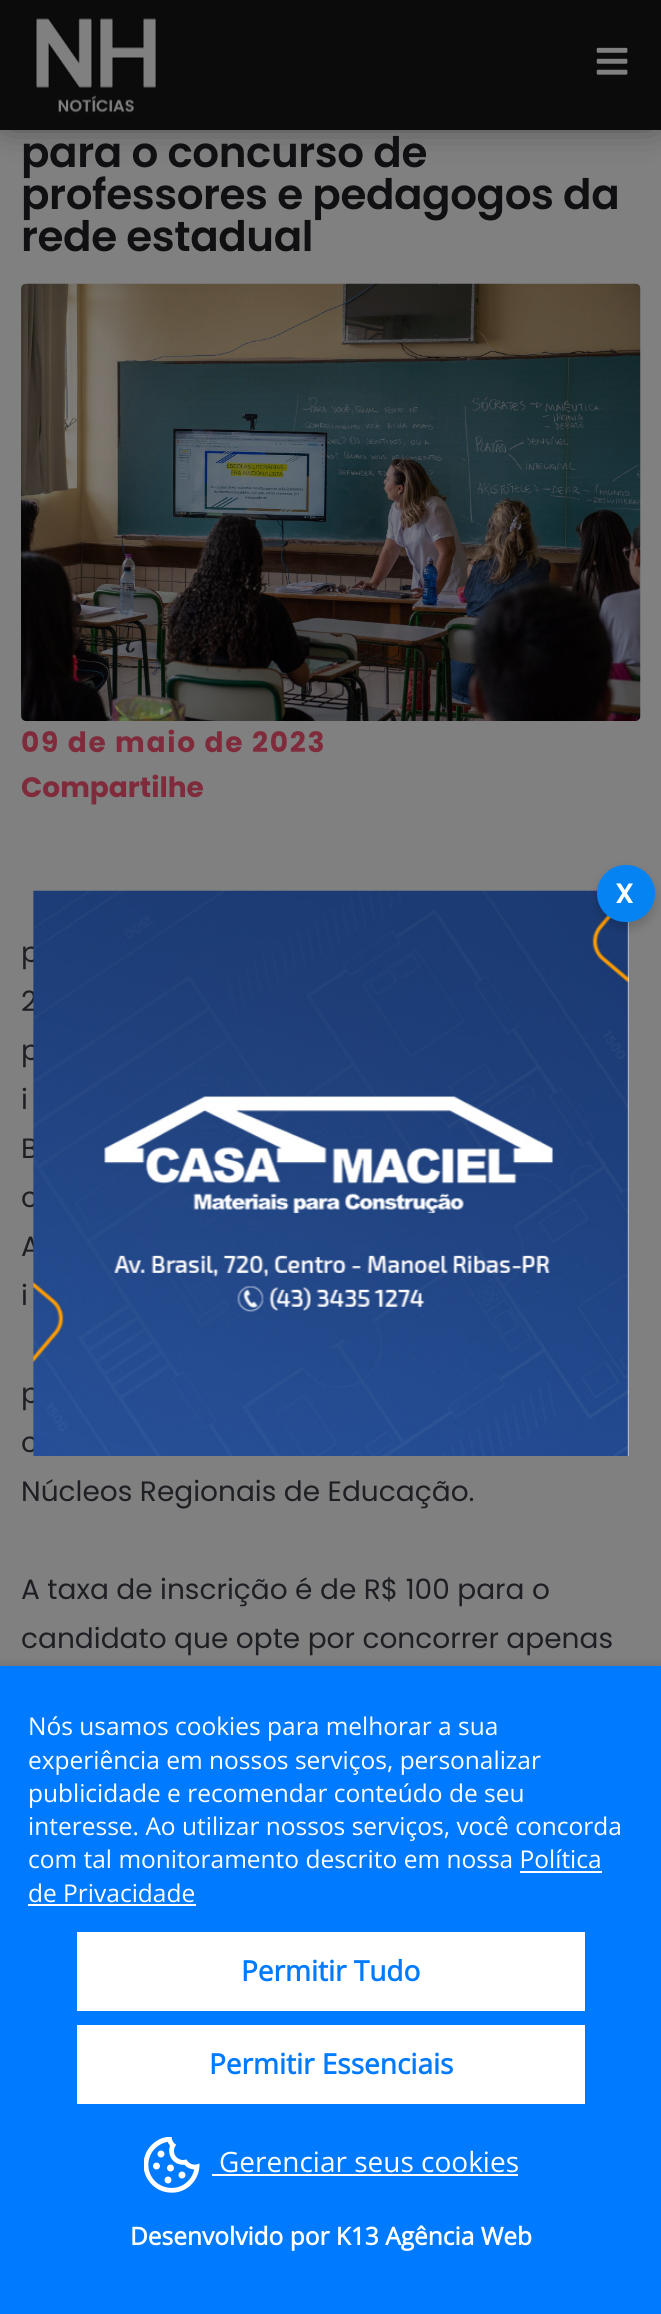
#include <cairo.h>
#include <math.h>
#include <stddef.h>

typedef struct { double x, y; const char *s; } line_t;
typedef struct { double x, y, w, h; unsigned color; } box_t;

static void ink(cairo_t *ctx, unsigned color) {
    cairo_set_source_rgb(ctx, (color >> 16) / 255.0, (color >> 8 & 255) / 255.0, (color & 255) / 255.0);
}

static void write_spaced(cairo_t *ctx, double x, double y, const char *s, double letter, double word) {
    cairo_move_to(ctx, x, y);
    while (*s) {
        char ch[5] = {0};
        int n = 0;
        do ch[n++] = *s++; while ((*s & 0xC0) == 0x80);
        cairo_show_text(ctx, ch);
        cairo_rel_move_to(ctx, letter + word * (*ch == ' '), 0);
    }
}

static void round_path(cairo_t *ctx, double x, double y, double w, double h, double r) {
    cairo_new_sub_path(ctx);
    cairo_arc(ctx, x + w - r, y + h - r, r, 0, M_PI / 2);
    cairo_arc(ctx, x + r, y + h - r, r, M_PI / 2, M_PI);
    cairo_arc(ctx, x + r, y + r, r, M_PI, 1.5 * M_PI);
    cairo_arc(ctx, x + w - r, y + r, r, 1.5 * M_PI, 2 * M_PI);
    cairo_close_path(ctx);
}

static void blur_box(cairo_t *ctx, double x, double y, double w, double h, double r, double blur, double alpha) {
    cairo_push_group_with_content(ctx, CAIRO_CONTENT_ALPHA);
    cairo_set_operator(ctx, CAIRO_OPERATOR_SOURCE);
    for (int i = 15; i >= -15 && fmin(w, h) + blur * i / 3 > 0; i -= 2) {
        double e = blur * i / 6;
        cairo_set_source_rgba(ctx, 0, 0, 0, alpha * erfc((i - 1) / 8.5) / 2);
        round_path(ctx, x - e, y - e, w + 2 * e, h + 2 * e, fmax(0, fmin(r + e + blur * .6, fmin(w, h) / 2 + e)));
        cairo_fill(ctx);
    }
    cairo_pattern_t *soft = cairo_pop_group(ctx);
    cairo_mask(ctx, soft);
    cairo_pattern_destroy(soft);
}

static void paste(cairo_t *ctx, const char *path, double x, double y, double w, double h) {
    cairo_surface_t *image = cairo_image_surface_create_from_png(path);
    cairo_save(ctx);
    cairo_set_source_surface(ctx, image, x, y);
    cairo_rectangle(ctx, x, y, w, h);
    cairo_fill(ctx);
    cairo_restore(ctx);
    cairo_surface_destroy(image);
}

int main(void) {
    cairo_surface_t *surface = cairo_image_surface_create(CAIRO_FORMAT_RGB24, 661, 2314);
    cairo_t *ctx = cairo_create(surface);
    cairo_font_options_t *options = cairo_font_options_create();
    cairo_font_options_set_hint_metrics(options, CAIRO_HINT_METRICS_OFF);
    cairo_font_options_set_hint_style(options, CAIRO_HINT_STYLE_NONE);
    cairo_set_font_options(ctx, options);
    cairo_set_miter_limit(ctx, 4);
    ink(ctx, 0x808080);
    cairo_paint(ctx);
    ink(ctx, 0x000000);
    blur_box(ctx, 9, 5, 644, 112, 0, 19, 0.75);
    ink(ctx, 0x0B0B0C);
    cairo_rectangle(ctx, 0, 0, 661, 130);
    cairo_fill(ctx);
    paste(ctx, "media/1.png", 35, 18, 122, 95);
    paste(ctx, "media/2.png", 596, 47, 32, 28);
    cairo_select_font_face(ctx, "Poppins SemiBold", CAIRO_FONT_SLANT_NORMAL, CAIRO_FONT_WEIGHT_NORMAL);
    cairo_set_font_size(ctx, 42);
    ink(ctx, 0x101012);
    {
        static const line_t items[] = {
            {21, 167, "para o concurso de"},
            {21, 209, "professores e pedagogos da"},
            {21, 251, "rede estadual"},
        };
        for (size_t i = 0; i < sizeof items / sizeof *items; i++) {
            write_spaced(ctx, items[i].x, items[i].y, items[i].s, -0.4, 0);
        }
    }
    paste(ctx, "media/3.png", 21, 283, 620, 438);
    cairo_select_font_face(ctx, "Poppins", CAIRO_FONT_SLANT_NORMAL, CAIRO_FONT_WEIGHT_BOLD);
    cairo_set_font_size(ctx, 28);
    ink(ctx, 0x802B3B);
    write_spaced(ctx, 21, 752, "09 de maio de 2023", 1.75, 0);
    cairo_move_to(ctx, 21, 797);
    cairo_show_text(ctx, "Compartilhe");
    cairo_select_font_face(ctx, "Poppins", CAIRO_FONT_SLANT_NORMAL, CAIRO_FONT_WEIGHT_NORMAL);
    ink(ctx, 0x1D1F23);
    {
        static const line_t items[] = {
            {21, 962, "p"},
            {21, 1011, "2"},
            {21, 1060, "p"},
            {21, 1109, "i"},
            {21, 1158, "B"},
            {21, 1207, "c"},
            {21, 1256, "A"},
            {21, 1305, "i"},
            {21, 1403, "p"},
            {21, 1452, "c"},
            {21, 1501, "Núcleos Regionais de Educação."},
            {21, 1599, "A taxa de inscrição é de R$ 100 para o"},
            {21, 1648, "candidato que opte por concorrer apenas"},
        };
        for (size_t i = 0; i < sizeof items / sizeof *items; i++) {
            cairo_move_to(ctx, items[i].x, items[i].y);
            cairo_show_text(ctx, items[i].s);
        }
    }
    paste(ctx, "media/4.png", 33, 890, 596, 566);
    paste(ctx, "media/5.png", 627, 921, 2, 535);
    ink(ctx, 0x000000);
    blur_box(ctx, 597, 870, 58, 58, 29, 5, 0.16);
    ink(ctx, 0x0583F2);
    round_path(ctx, 599, 867, 54, 53, 26.5);
    cairo_fill_preserve(ctx);
    cairo_set_line_width(ctx, 4);
    cairo_stroke(ctx);
    cairo_select_font_face(ctx, "Poppins SemiBold", CAIRO_FONT_SLANT_NORMAL, CAIRO_FONT_WEIGHT_NORMAL);
    ink(ctx, 0xFFFFFF);
    cairo_move_to(ctx, 615, 903);
    cairo_show_text(ctx, "X");
    ink(ctx, 0x000000);
    blur_box(ctx, 0, 1666, 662, 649, 0, 5, 0.16);
    ink(ctx, 0x007AFF);
    cairo_rectangle(ctx, 0, 1666, 661, 648);
    cairo_fill(ctx);
    cairo_select_font_face(ctx, "Open Sans", CAIRO_FONT_SLANT_NORMAL, CAIRO_FONT_WEIGHT_NORMAL);
    cairo_set_font_size(ctx, 24.5);
    ink(ctx, 0xFFFFFF);
    {
        static const line_t items[] = {
            {28, 1735, "Nós usamos cookies para melhorar a sua"},
            {28, 1769, "experiência em nossos serviços, personalizar"},
            {28, 1802, "publicidade e recomendar conteúdo de seu"},
            {28, 1835, "interesse. Ao utilizar nossos serviços, você concorda"},
            {28, 1868, "com tal monitoramento descrito em nossa Política"},
            {28, 1902, "de Privacidade"},
        };
        for (size_t i = 0; i < sizeof items / sizeof *items; i++) {
            cairo_move_to(ctx, items[i].x, items[i].y);
            cairo_show_text(ctx, items[i].s);
        }
    }
    {
        static const box_t items[] = {
            {520, 1871, 82, 2, 0xFFFFFF},
            {28, 1904, 168, 2, 0xFFFFFF},
            {77, 1932, 508, 79, 0xFFFFFF},
        };
        for (size_t i = 0; i < sizeof items / sizeof *items; i++) {
            ink(ctx, items[i].color);
            cairo_rectangle(ctx, items[i].x, items[i].y, items[i].w, items[i].h);
            cairo_fill(ctx);
        }
    }
    cairo_select_font_face(ctx, "Open Sans", CAIRO_FONT_SLANT_NORMAL, CAIRO_FONT_WEIGHT_BOLD);
    cairo_set_font_size(ctx, 28);
    ink(ctx, 0x007AFF);
    cairo_move_to(ctx, 241, 1981);
    cairo_show_text(ctx, "Permitir Tudo");
    ink(ctx, 0xFFFFFF);
    cairo_rectangle(ctx, 77, 2025, 508, 79);
    cairo_fill(ctx);
    ink(ctx, 0x007AFF);
    cairo_move_to(ctx, 209, 2074);
    cairo_show_text(ctx, "Permitir Essenciais");
    paste(ctx, "media/6.png", 144, 2137, 56, 56);
    cairo_select_font_face(ctx, "Open Sans", CAIRO_FONT_SLANT_NORMAL, CAIRO_FONT_WEIGHT_NORMAL);
    ink(ctx, 0xFFFFFF);
    cairo_move_to(ctx, 219, 2172);
    cairo_show_text(ctx, "Gerenciar seus cookies");
    cairo_rectangle(ctx, 212, 2174, 306, 2);
    cairo_fill(ctx);
    cairo_select_font_face(ctx, "Open Sans", CAIRO_FONT_SLANT_NORMAL, CAIRO_FONT_WEIGHT_BOLD);
    cairo_set_font_size(ctx, 24.5);
    cairo_move_to(ctx, 130, 2245);
    cairo_show_text(ctx, "Desenvolvido por K13 Agência Web");
    cairo_surface_write_to_png(surface, "image.png");
    cairo_font_options_destroy(options);
    cairo_destroy(ctx);
    cairo_surface_destroy(surface);
    return 0;
}
